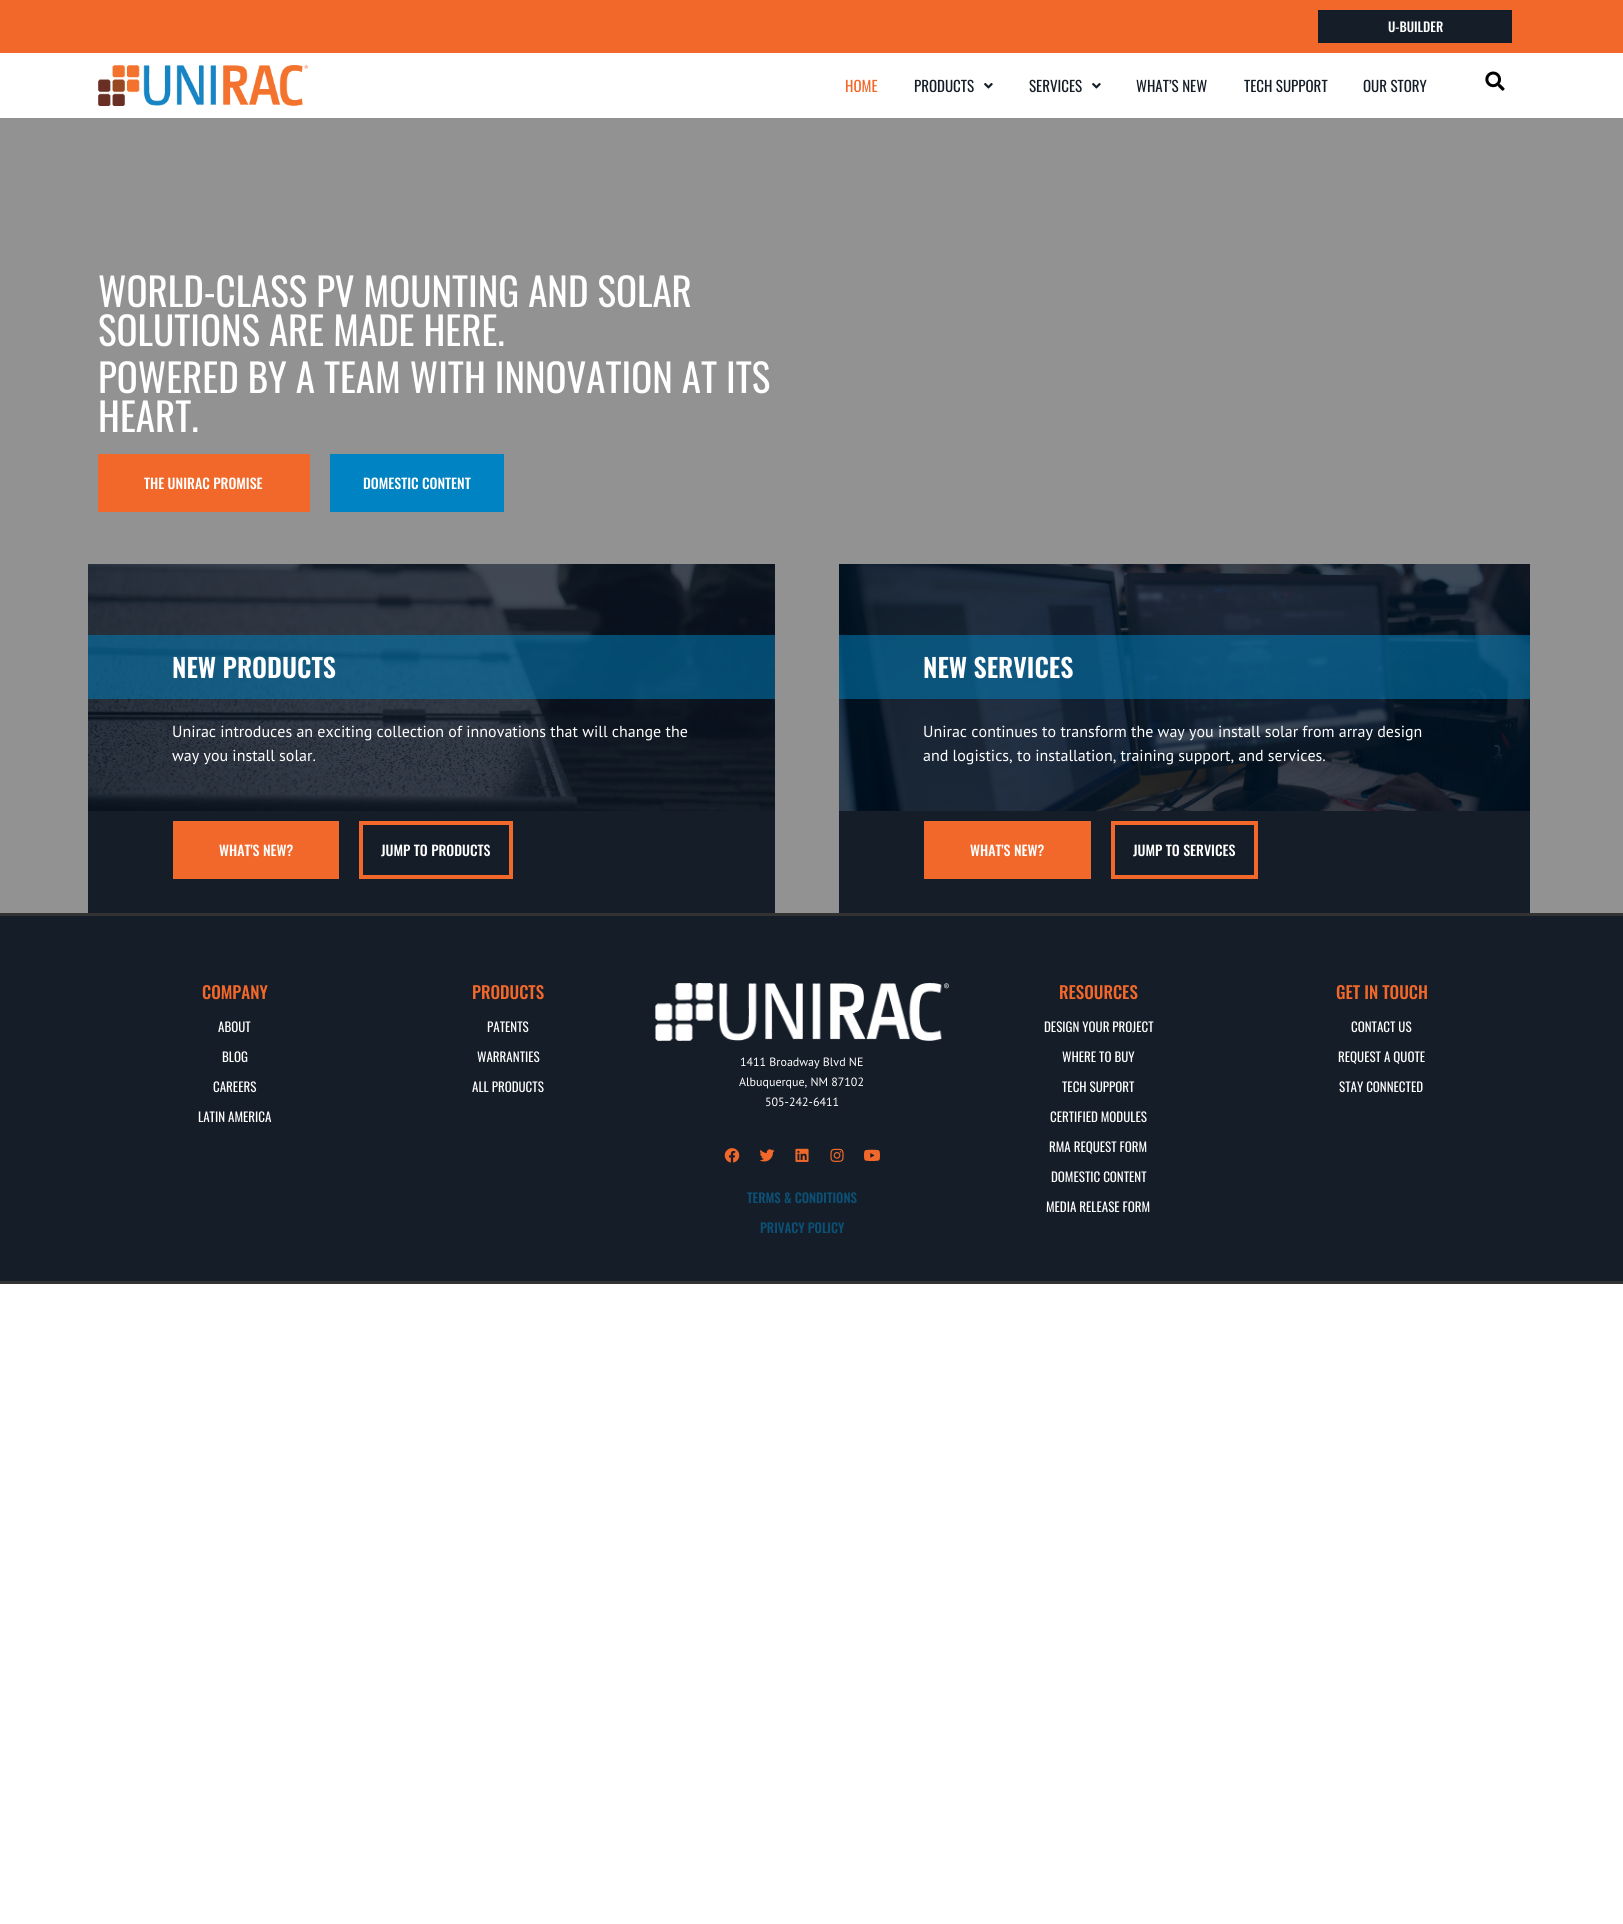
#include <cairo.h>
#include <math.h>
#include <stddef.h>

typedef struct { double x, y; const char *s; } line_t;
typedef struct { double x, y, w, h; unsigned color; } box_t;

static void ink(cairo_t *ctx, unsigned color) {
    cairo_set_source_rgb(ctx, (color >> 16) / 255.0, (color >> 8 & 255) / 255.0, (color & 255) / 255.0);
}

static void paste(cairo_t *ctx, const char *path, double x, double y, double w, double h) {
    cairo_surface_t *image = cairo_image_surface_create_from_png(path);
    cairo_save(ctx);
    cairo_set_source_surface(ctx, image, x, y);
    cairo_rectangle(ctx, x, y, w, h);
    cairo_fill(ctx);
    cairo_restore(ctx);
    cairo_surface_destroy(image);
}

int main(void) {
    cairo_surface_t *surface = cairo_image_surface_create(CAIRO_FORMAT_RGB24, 1623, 1924);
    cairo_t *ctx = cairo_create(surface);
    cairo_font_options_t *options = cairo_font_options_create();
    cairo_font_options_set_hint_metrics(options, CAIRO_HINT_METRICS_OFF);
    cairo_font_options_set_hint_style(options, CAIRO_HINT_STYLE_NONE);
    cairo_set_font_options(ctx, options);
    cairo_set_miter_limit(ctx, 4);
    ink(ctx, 0xFFFFFF);
    cairo_paint(ctx);
    ink(ctx, 0xF2682A);
    cairo_rectangle(ctx, 0, 0, 1623, 53);
    cairo_fill(ctx);
    ink(ctx, 0x151D28);
    cairo_rectangle(ctx, 1318, 10, 194, 33);
    cairo_fill(ctx);
    cairo_select_font_face(ctx, "Oswald Medium", CAIRO_FONT_SLANT_NORMAL, CAIRO_FONT_WEIGHT_NORMAL);
    cairo_set_font_size(ctx, 13);
    ink(ctx, 0xFFFFFF);
    cairo_move_to(ctx, 1388, 32);
    cairo_show_text(ctx, "U-BUILDER");
    paste(ctx, "media/1.png", 98, 65, 210, 41);
    cairo_select_font_face(ctx, "Oswald", CAIRO_FONT_SLANT_NORMAL, CAIRO_FONT_WEIGHT_NORMAL);
    cairo_set_font_size(ctx, 15);
    ink(ctx, 0xF2682A);
    cairo_move_to(ctx, 845, 92);
    cairo_show_text(ctx, "HOME");
    ink(ctx, 0x151D28);
    cairo_move_to(ctx, 914, 92);
    cairo_show_text(ctx, "PRODUCTS");
    paste(ctx, "media/2.png", 984, 83, 9, 6);
    cairo_move_to(ctx, 1029, 92);
    cairo_show_text(ctx, "SERVICES");
    paste(ctx, "media/2.png", 1092, 83, 9, 6);
    {
        static const line_t items[] = {
            {1136, 92, "WHAT’S NEW"},
            {1244, 92, "TECH SUPPORT"},
            {1363, 92, "OUR STORY"},
        };
        for (size_t i = 0; i < sizeof items / sizeof *items; i++) {
            cairo_move_to(ctx, items[i].x, items[i].y);
            cairo_show_text(ctx, items[i].s);
        }
    }
    paste(ctx, "media/3.png", 1485, 71, 20, 20);
    ink(ctx, 0x929292);
    cairo_rectangle(ctx, 0, 118, 1623, 795);
    cairo_fill(ctx);
    cairo_set_font_size(ctx, 39);
    ink(ctx, 0xFFFFFF);
    {
        static const line_t items[] = {
            {98, 307, "WORLD-CLASS PV MOUNTING AND SOLAR"},
            {98, 346, "SOLUTIONS ARE MADE HERE."},
            {98, 393, "POWERED BY A TEAM WITH INNOVATION AT ITS"},
            {98, 432, "HEART."},
        };
        for (size_t i = 0; i < sizeof items / sizeof *items; i++) {
            cairo_move_to(ctx, items[i].x, items[i].y);
            cairo_show_text(ctx, items[i].s);
        }
    }
    ink(ctx, 0xF2682A);
    cairo_rectangle(ctx, 98, 454, 212, 58);
    cairo_fill(ctx);
    cairo_select_font_face(ctx, "Oswald Medium", CAIRO_FONT_SLANT_NORMAL, CAIRO_FONT_WEIGHT_NORMAL);
    cairo_set_font_size(ctx, 14);
    ink(ctx, 0xFFFFFF);
    cairo_move_to(ctx, 144, 489);
    cairo_show_text(ctx, "THE UNIRAC PROMISE");
    ink(ctx, 0x0083C2);
    cairo_rectangle(ctx, 330, 454, 174, 58);
    cairo_fill(ctx);
    ink(ctx, 0xFFFFFF);
    cairo_move_to(ctx, 363, 489);
    cairo_show_text(ctx, "DOMESTIC CONTENT");
    paste(ctx, "media/4.png", 88, 564, 687, 247);
    cairo_set_source_rgba(ctx, 0.004, 0.506, 0.749, 0.52);
    cairo_rectangle(ctx, 88, 635, 687, 64);
    cairo_fill(ctx);
    cairo_select_font_face(ctx, "Oswald SemiBold", CAIRO_FONT_SLANT_NORMAL, CAIRO_FONT_WEIGHT_NORMAL);
    cairo_set_font_size(ctx, 26);
    ink(ctx, 0xFFFFFF);
    cairo_move_to(ctx, 172, 678);
    cairo_show_text(ctx, "NEW PRODUCTS");
    cairo_select_font_face(ctx, "PT Sans", CAIRO_FONT_SLANT_NORMAL, CAIRO_FONT_WEIGHT_NORMAL);
    cairo_set_font_size(ctx, 16);
    cairo_move_to(ctx, 172, 737);
    cairo_show_text(ctx, "Unirac introduces an exciting collection of innovations that will change the");
    cairo_move_to(ctx, 172, 761);
    cairo_show_text(ctx, "way you install solar.");
    ink(ctx, 0x151D28);
    cairo_rectangle(ctx, 88, 811, 687, 102);
    cairo_fill(ctx);
    ink(ctx, 0xF2682A);
    cairo_rectangle(ctx, 173, 821, 166, 58);
    cairo_fill(ctx);
    cairo_select_font_face(ctx, "Oswald Medium", CAIRO_FONT_SLANT_NORMAL, CAIRO_FONT_WEIGHT_NORMAL);
    cairo_set_font_size(ctx, 14);
    ink(ctx, 0xFFFFFF);
    cairo_move_to(ctx, 219, 856);
    cairo_show_text(ctx, "WHAT'S NEW?");
    cairo_rectangle(ctx, 361, 823, 150, 54);
    ink(ctx, 0xF2682A);
    cairo_set_line_width(ctx, 4);
    cairo_stroke(ctx);
    ink(ctx, 0xFFFFFF);
    cairo_move_to(ctx, 381, 856);
    cairo_show_text(ctx, "JUMP TO PRODUCTS");
    paste(ctx, "media/5.png", 839, 564, 691, 247);
    cairo_set_source_rgba(ctx, 0.004, 0.506, 0.749, 0.52);
    cairo_rectangle(ctx, 839, 635, 691, 64);
    cairo_fill(ctx);
    cairo_select_font_face(ctx, "Oswald SemiBold", CAIRO_FONT_SLANT_NORMAL, CAIRO_FONT_WEIGHT_NORMAL);
    cairo_set_font_size(ctx, 26);
    ink(ctx, 0xFFFFFF);
    cairo_move_to(ctx, 923, 678);
    cairo_show_text(ctx, "NEW SERVICES");
    cairo_select_font_face(ctx, "PT Sans", CAIRO_FONT_SLANT_NORMAL, CAIRO_FONT_WEIGHT_NORMAL);
    cairo_set_font_size(ctx, 16);
    cairo_move_to(ctx, 923, 737);
    cairo_show_text(ctx, "Unirac continues to transform the way you install solar from array design");
    cairo_move_to(ctx, 923, 761);
    cairo_show_text(ctx, "and logistics, to installation, training support, and services.");
    ink(ctx, 0x151D28);
    cairo_rectangle(ctx, 839, 811, 691, 102);
    cairo_fill(ctx);
    ink(ctx, 0xF2682A);
    cairo_rectangle(ctx, 924, 821, 167, 58);
    cairo_fill(ctx);
    cairo_select_font_face(ctx, "Oswald Medium", CAIRO_FONT_SLANT_NORMAL, CAIRO_FONT_WEIGHT_NORMAL);
    cairo_set_font_size(ctx, 14);
    ink(ctx, 0xFFFFFF);
    cairo_move_to(ctx, 970, 856);
    cairo_show_text(ctx, "WHAT'S NEW?");
    cairo_rectangle(ctx, 1113, 823, 143, 54);
    ink(ctx, 0xF2682A);
    cairo_stroke(ctx);
    ink(ctx, 0xFFFFFF);
    cairo_move_to(ctx, 1133, 856);
    cairo_show_text(ctx, "JUMP TO SERVICES");
    {
        static const box_t items[] = {
            {0, 916, 1623, 365, 0x151D28},
            {0, 913, 1623, 3, 0x333333},
            {0, 1281, 1623, 3, 0x333333},
        };
        for (size_t i = 0; i < sizeof items / sizeof *items; i++) {
            ink(ctx, items[i].color);
            cairo_rectangle(ctx, items[i].x, items[i].y, items[i].w, items[i].h);
            cairo_fill(ctx);
        }
    }
    cairo_set_font_size(ctx, 17);
    ink(ctx, 0xF2682A);
    cairo_move_to(ctx, 202, 999);
    cairo_show_text(ctx, "COMPANY");
    cairo_select_font_face(ctx, "Oswald", CAIRO_FONT_SLANT_NORMAL, CAIRO_FONT_WEIGHT_NORMAL);
    cairo_set_font_size(ctx, 13);
    ink(ctx, 0xFFFFFF);
    {
        static const line_t items[] = {
            {218, 1032, "ABOUT"},
            {222, 1062, "BLOG"},
            {213, 1092, "CAREERS"},
            {198, 1122, "LATIN AMERICA"},
        };
        for (size_t i = 0; i < sizeof items / sizeof *items; i++) {
            cairo_move_to(ctx, items[i].x, items[i].y);
            cairo_show_text(ctx, items[i].s);
        }
    }
    cairo_select_font_face(ctx, "Oswald Medium", CAIRO_FONT_SLANT_NORMAL, CAIRO_FONT_WEIGHT_NORMAL);
    cairo_set_font_size(ctx, 17);
    ink(ctx, 0xF2682A);
    cairo_move_to(ctx, 472, 999);
    cairo_show_text(ctx, "PRODUCTS");
    cairo_select_font_face(ctx, "Oswald", CAIRO_FONT_SLANT_NORMAL, CAIRO_FONT_WEIGHT_NORMAL);
    cairo_set_font_size(ctx, 13);
    ink(ctx, 0xFFFFFF);
    {
        static const line_t items[] = {
            {487, 1032, "PATENTS"},
            {477, 1062, "WARRANTIES"},
            {472, 1092, "ALL PRODUCTS"},
        };
        for (size_t i = 0; i < sizeof items / sizeof *items; i++) {
            cairo_move_to(ctx, items[i].x, items[i].y);
            cairo_show_text(ctx, items[i].s);
        }
    }
    cairo_select_font_face(ctx, "Oswald Medium", CAIRO_FONT_SLANT_NORMAL, CAIRO_FONT_WEIGHT_NORMAL);
    cairo_set_font_size(ctx, 17);
    ink(ctx, 0xF2682A);
    cairo_move_to(ctx, 1059, 999);
    cairo_show_text(ctx, "RESOURCES");
    cairo_select_font_face(ctx, "Oswald", CAIRO_FONT_SLANT_NORMAL, CAIRO_FONT_WEIGHT_NORMAL);
    cairo_set_font_size(ctx, 13);
    ink(ctx, 0xFFFFFF);
    {
        static const line_t items[] = {
            {1044, 1032, "DESIGN YOUR PROJECT"},
            {1062, 1062, "WHERE TO BUY"},
            {1062, 1092, "TECH SUPPORT"},
            {1050, 1122, "CERTIFIED MODULES"},
            {1049, 1152, "RMA REQUEST FORM"},
            {1051, 1182, "DOMESTIC CONTENT"},
            {1046, 1212, "MEDIA RELEASE FORM"},
        };
        for (size_t i = 0; i < sizeof items / sizeof *items; i++) {
            cairo_move_to(ctx, items[i].x, items[i].y);
            cairo_show_text(ctx, items[i].s);
        }
    }
    cairo_select_font_face(ctx, "Oswald Medium", CAIRO_FONT_SLANT_NORMAL, CAIRO_FONT_WEIGHT_NORMAL);
    cairo_set_font_size(ctx, 17);
    ink(ctx, 0xF2682A);
    cairo_move_to(ctx, 1336, 999);
    cairo_show_text(ctx, "GET IN TOUCH");
    cairo_select_font_face(ctx, "Oswald", CAIRO_FONT_SLANT_NORMAL, CAIRO_FONT_WEIGHT_NORMAL);
    cairo_set_font_size(ctx, 13);
    ink(ctx, 0xFFFFFF);
    {
        static const line_t items[] = {
            {1351, 1032, "CONTACT US"},
            {1338, 1062, "REQUEST A QUOTE"},
            {1339, 1092, "STAY CONNECTED"},
        };
        for (size_t i = 0; i < sizeof items / sizeof *items; i++) {
            cairo_move_to(ctx, items[i].x, items[i].y);
            cairo_show_text(ctx, items[i].s);
        }
    }
    paste(ctx, "media/6.png", 655, 983, 294, 58);
    cairo_select_font_face(ctx, "PT Sans", CAIRO_FONT_SLANT_NORMAL, CAIRO_FONT_WEIGHT_NORMAL);
    cairo_set_font_size(ctx, 12);
    {
        static const line_t items[] = {
            {740, 1066, "1411 Broadway Blvd NE"},
            {739, 1086, "Albuquerque, NM 87102"},
            {765, 1106, "505-242-6411"},
        };
        for (size_t i = 0; i < sizeof items / sizeof *items; i++) {
            cairo_move_to(ctx, items[i].x, items[i].y);
            cairo_show_text(ctx, items[i].s);
        }
    }
    paste(ctx, "media/7.png", 724, 1148, 16, 15);
    paste(ctx, "media/8.png", 759, 1149, 16, 13);
    paste(ctx, "media/9.png", 795, 1148, 14, 14);
    paste(ctx, "media/10.png", 830, 1148, 14, 14);
    paste(ctx, "media/11.png", 864, 1149, 16, 12);
    cairo_select_font_face(ctx, "Oswald Medium", CAIRO_FONT_SLANT_NORMAL, CAIRO_FONT_WEIGHT_NORMAL);
    cairo_set_font_size(ctx, 13);
    ink(ctx, 0x0B5177);
    cairo_move_to(ctx, 747, 1203);
    cairo_show_text(ctx, "TERMS & CONDITIONS");
    cairo_move_to(ctx, 760, 1233);
    cairo_show_text(ctx, "PRIVACY POLICY");
    cairo_surface_write_to_png(surface, "image.png");
    cairo_font_options_destroy(options);
    cairo_destroy(ctx);
    cairo_surface_destroy(surface);
    return 0;
}
